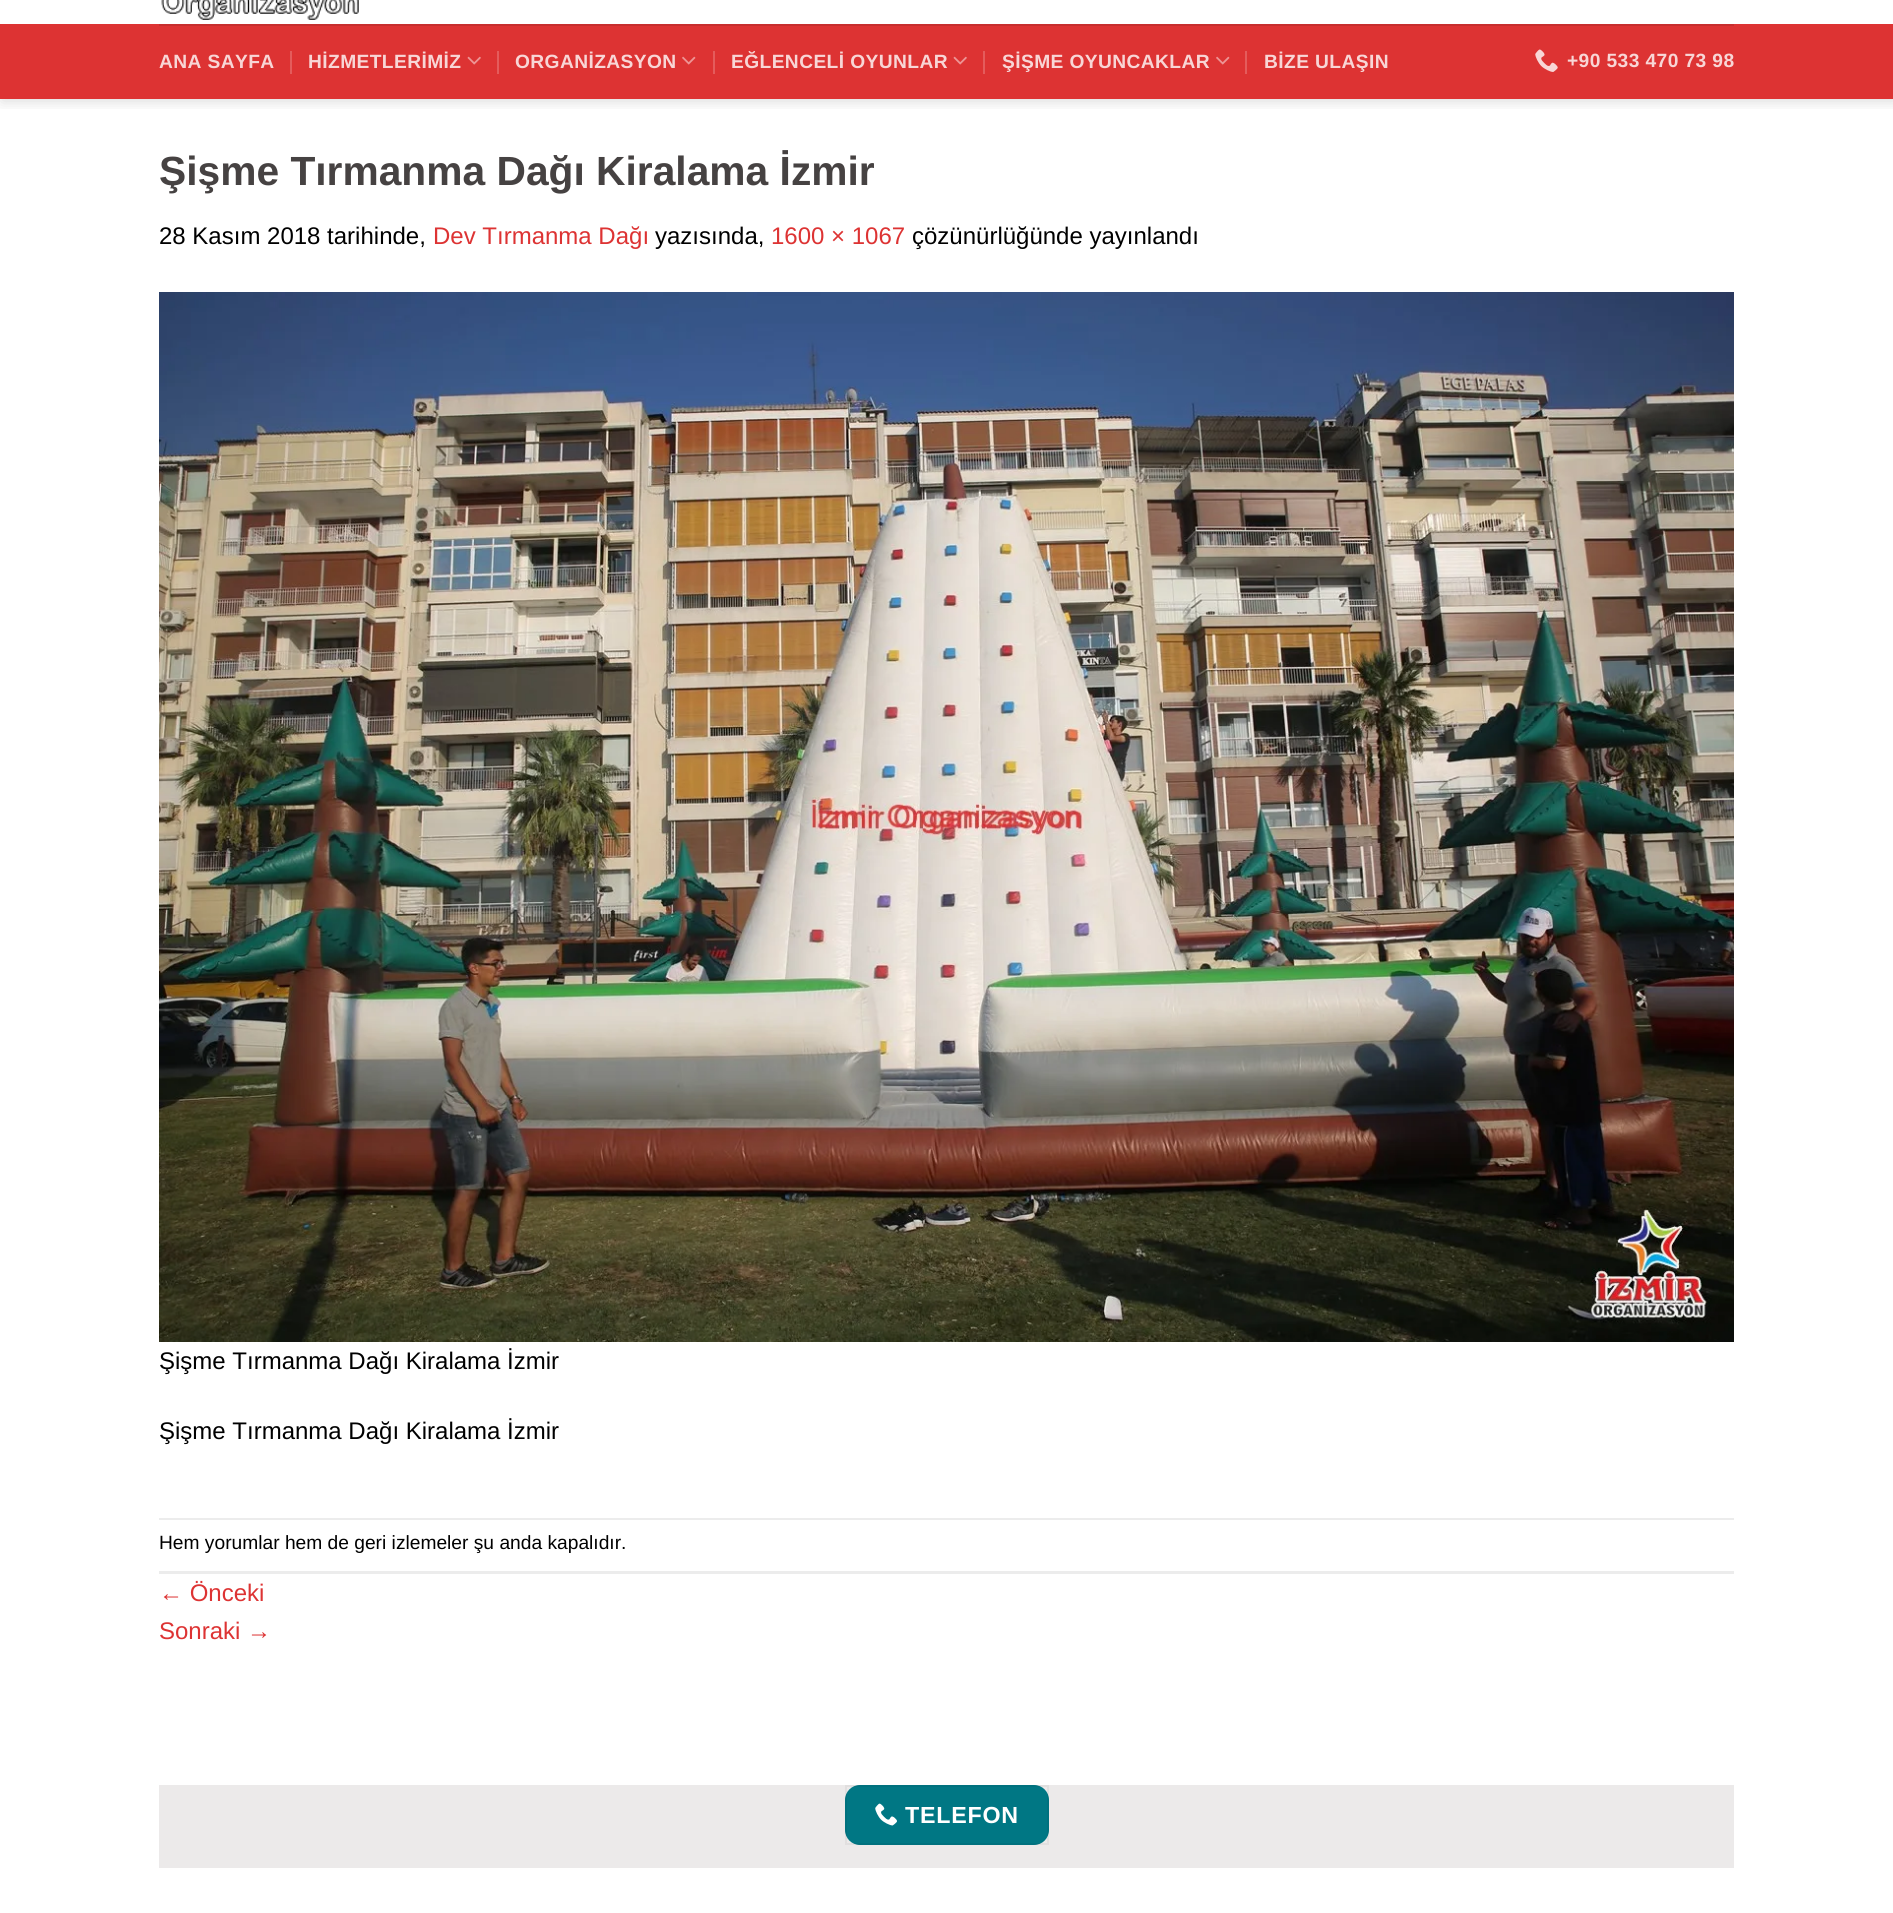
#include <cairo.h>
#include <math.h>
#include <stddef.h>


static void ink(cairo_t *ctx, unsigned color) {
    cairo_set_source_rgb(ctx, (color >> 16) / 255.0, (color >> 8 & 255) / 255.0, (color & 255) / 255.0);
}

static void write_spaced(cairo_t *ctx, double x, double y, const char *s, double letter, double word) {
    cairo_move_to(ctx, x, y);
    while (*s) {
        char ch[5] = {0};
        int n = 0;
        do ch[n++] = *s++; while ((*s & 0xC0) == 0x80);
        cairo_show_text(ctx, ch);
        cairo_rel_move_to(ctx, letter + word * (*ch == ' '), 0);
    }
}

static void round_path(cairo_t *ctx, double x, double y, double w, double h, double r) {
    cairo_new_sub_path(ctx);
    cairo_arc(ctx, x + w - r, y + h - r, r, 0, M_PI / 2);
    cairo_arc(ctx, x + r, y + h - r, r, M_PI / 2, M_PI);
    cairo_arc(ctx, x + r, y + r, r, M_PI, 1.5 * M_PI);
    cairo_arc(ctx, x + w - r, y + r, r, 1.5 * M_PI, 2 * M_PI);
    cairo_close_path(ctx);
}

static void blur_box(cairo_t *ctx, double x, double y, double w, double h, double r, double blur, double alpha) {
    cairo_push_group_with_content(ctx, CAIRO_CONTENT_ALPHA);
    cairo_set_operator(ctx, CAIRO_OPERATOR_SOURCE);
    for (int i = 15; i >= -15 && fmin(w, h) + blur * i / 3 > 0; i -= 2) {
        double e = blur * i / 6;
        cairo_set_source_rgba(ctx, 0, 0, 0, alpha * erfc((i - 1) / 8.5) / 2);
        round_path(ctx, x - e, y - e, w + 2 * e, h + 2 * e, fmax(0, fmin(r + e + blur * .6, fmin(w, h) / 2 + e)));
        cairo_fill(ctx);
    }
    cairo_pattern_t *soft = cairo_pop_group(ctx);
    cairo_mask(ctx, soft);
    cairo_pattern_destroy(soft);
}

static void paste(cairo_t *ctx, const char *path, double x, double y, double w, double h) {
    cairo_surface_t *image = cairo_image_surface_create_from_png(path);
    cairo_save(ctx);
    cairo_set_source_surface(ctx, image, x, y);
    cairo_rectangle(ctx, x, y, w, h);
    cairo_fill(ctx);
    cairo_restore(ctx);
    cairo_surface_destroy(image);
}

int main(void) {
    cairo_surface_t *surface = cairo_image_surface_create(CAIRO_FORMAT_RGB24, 1893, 1913);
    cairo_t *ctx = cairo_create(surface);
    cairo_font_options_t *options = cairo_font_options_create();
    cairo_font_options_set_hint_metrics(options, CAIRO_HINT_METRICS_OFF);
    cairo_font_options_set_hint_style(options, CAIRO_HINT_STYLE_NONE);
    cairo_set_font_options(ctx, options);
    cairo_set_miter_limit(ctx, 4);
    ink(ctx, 0xFFFFFF);
    cairo_paint(ctx);
    cairo_save(ctx);
    cairo_rectangle(ctx, 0, 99, 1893, 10);
    cairo_clip(ctx);
    ink(ctx, 0x000000);
    blur_box(ctx, 2, -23, 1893, 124, 0, 7.5, 0.15);
    cairo_restore(ctx);
    paste(ctx, "media/1.png", 161, 0, 198, 20);
    ink(ctx, 0xDD3333);
    cairo_rectangle(ctx, 0, 24, 1893, 75);
    cairo_fill(ctx);
    ink(ctx, 0xC72E2E);
    cairo_rectangle(ctx, 159, 24, 1575, 2);
    cairo_fill(ctx);
    cairo_select_font_face(ctx, "Liberation Sans", CAIRO_FONT_SLANT_NORMAL, CAIRO_FONT_WEIGHT_BOLD);
    cairo_set_font_size(ctx, 19.2);
    ink(ctx, 0xF8D6D6);
    write_spaced(ctx, 159, 68, "ANA SAYFA", 0.4, 0);
    ink(ctx, 0xE45C5C);
    cairo_rectangle(ctx, 290, 51, 2, 23);
    cairo_fill(ctx);
    ink(ctx, 0xF8D6D6);
    write_spaced(ctx, 308, 68, "HİZMETLERİMİZ", 0.4, 0);
    paste(ctx, "media/2.png", 467, 56, 14, 9);
    ink(ctx, 0xE45C5C);
    cairo_rectangle(ctx, 497, 51, 2, 23);
    cairo_fill(ctx);
    ink(ctx, 0xF8D6D6);
    write_spaced(ctx, 515, 68, "ORGANİZASYON", 0.4, 0);
    paste(ctx, "media/3.png", 682, 56, 14, 9);
    ink(ctx, 0xE45C5C);
    cairo_rectangle(ctx, 713, 51, 2, 23);
    cairo_fill(ctx);
    ink(ctx, 0xF8D6D6);
    write_spaced(ctx, 731, 68, "EĞLENCELİ OYUNLAR", 0.4, 0);
    paste(ctx, "media/2.png", 953, 56, 14, 9);
    ink(ctx, 0xE45C5C);
    cairo_rectangle(ctx, 983, 51, 2, 23);
    cairo_fill(ctx);
    ink(ctx, 0xF8D6D6);
    write_spaced(ctx, 1002, 68, "ŞİŞME OYUNCAKLAR", 0.4, 0);
    paste(ctx, "media/3.png", 1216, 56, 14, 9);
    ink(ctx, 0xE45C5C);
    cairo_rectangle(ctx, 1245, 51, 2, 23);
    cairo_fill(ctx);
    ink(ctx, 0xF8D6D6);
    write_spaced(ctx, 1264, 68, "BİZE ULAŞIN", 0.4, 0);
    paste(ctx, "media/4.png", 1535, 49, 23, 23);
    write_spaced(ctx, 1567, 67, "+90 533 470 73 98", 0.4, 0);
    cairo_set_font_size(ctx, 40.75);
    ink(ctx, 0x464242);
    cairo_move_to(ctx, 159, 185);
    cairo_show_text(ctx, "Şişme Tırmanma Dağı Kiralama İzmir");
    cairo_select_font_face(ctx, "Liberation Sans", CAIRO_FONT_SLANT_NORMAL, CAIRO_FONT_WEIGHT_NORMAL);
    cairo_set_font_size(ctx, 24);
    ink(ctx, 0x000000);
    cairo_move_to(ctx, 159, 244);
    cairo_show_text(ctx, "28 Kasım 2018 tarihinde,");
    ink(ctx, 0xDD3333);
    cairo_move_to(ctx, 433, 244);
    cairo_show_text(ctx, "Dev Tırmanma Dağı");
    ink(ctx, 0x000000);
    cairo_move_to(ctx, 655, 244);
    cairo_show_text(ctx, "yazısında,");
    ink(ctx, 0xDD3333);
    cairo_move_to(ctx, 771, 244);
    cairo_show_text(ctx, "1600 × 1067");
    ink(ctx, 0x000000);
    cairo_move_to(ctx, 912, 244);
    cairo_show_text(ctx, "çözünürlüğünde yayınlandı");
    paste(ctx, "media/5.png", 159, 292, 1575, 1050);
    cairo_move_to(ctx, 159, 1369);
    cairo_show_text(ctx, "Şişme Tırmanma Dağı Kiralama İzmir");
    cairo_move_to(ctx, 159, 1439);
    cairo_show_text(ctx, "Şişme Tırmanma Dağı Kiralama İzmir");
    ink(ctx, 0xECECEC);
    cairo_rectangle(ctx, 159, 1518, 1575, 2);
    cairo_fill(ctx);
    cairo_rectangle(ctx, 159, 1571, 1575, 3);
    cairo_fill(ctx);
    cairo_set_font_size(ctx, 19.2);
    ink(ctx, 0x000000);
    cairo_move_to(ctx, 159, 1549);
    cairo_show_text(ctx, "Hem yorumlar hem de geri izlemeler şu anda kapalıdır.");
    cairo_set_font_size(ctx, 24);
    ink(ctx, 0xDD3333);
    cairo_move_to(ctx, 159, 1601);
    cairo_show_text(ctx, "← Önceki");
    cairo_move_to(ctx, 159, 1639);
    cairo_show_text(ctx, "Sonraki →");
    ink(ctx, 0xECEAEA);
    cairo_rectangle(ctx, 159, 1785, 1575, 83);
    cairo_fill(ctx);
    ink(ctx, 0x007784);
    round_path(ctx, 845, 1785, 204, 60, 15);
    cairo_fill(ctx);
    cairo_rectangle(ctx, 846, 1786, 202, 58);
    cairo_set_source_rgba(ctx, 0, 0, 0, 0.05);
    cairo_stroke(ctx);
    paste(ctx, "media/6.png", 875, 1803, 22, 23);
    cairo_select_font_face(ctx, "Liberation Sans", CAIRO_FONT_SLANT_NORMAL, CAIRO_FONT_WEIGHT_BOLD);
    cairo_set_font_size(ctx, 23.25);
    ink(ctx, 0xFFFFFF);
    write_spaced(ctx, 905, 1823, "TELEFON", 0.75, 0);
    cairo_surface_write_to_png(surface, "image.png");
    cairo_font_options_destroy(options);
    cairo_destroy(ctx);
    cairo_surface_destroy(surface);
    return 0;
}
